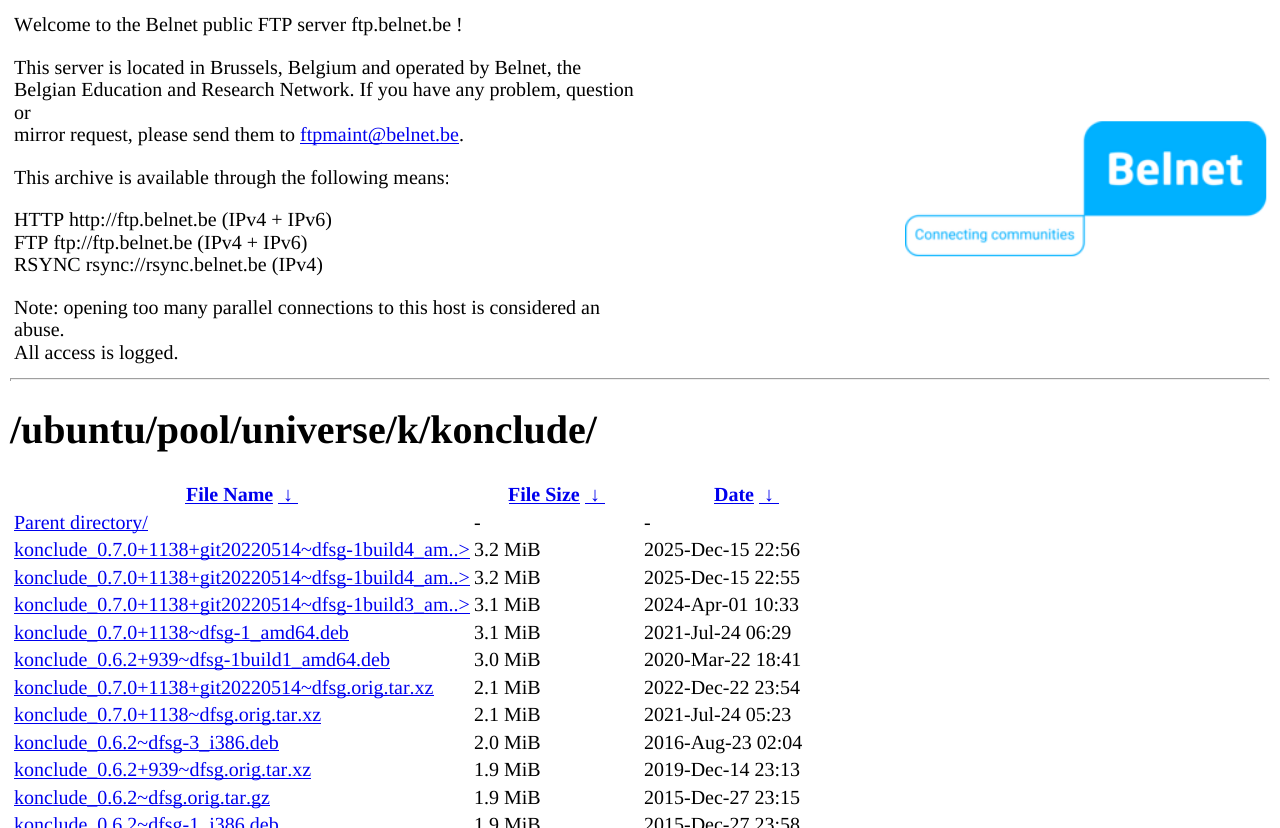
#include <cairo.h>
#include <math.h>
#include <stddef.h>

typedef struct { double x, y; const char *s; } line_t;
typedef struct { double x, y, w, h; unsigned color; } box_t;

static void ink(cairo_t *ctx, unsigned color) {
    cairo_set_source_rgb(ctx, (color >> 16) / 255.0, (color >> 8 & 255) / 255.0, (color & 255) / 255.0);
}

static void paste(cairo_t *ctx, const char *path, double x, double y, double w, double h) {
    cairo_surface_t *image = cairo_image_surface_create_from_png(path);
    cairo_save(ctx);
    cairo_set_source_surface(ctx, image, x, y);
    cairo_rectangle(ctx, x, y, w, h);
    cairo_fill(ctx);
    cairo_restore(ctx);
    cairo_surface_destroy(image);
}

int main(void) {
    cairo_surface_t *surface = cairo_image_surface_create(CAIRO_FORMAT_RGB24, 1280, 828);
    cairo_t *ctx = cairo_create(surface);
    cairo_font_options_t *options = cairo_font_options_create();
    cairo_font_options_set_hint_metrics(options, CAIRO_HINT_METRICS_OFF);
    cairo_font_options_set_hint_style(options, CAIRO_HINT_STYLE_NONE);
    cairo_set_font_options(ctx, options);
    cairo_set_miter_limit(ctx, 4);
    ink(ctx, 0xFFFFFF);
    cairo_paint(ctx);
    cairo_select_font_face(ctx, "Liberation Serif", CAIRO_FONT_SLANT_NORMAL, CAIRO_FONT_WEIGHT_NORMAL);
    cairo_set_font_size(ctx, 20);
    ink(ctx, 0x000000);
    {
        static const line_t items[] = {
            {14, 31, "Welcome to the Belnet public FTP server ftp.belnet.be !"},
            {14, 74, "This server is located in Brussels, Belgium and operated by Belnet, the"},
            {14, 96, "Belgian Education and Research Network. If you have any problem, question"},
            {14, 119, "or"},
            {14, 141, "mirror request, please send them to"},
        };
        for (size_t i = 0; i < sizeof items / sizeof *items; i++) {
            cairo_move_to(ctx, items[i].x, items[i].y);
            cairo_show_text(ctx, items[i].s);
        }
    }
    ink(ctx, 0x0000EE);
    cairo_rectangle(ctx, 300, 143, 159, 1);
    cairo_fill(ctx);
    cairo_move_to(ctx, 300, 141);
    cairo_show_text(ctx, "ftpmaint@belnet.be");
    ink(ctx, 0x000000);
    {
        static const line_t items[] = {
            {459, 141, "."},
            {14, 184, "This archive is available through the following means:"},
            {14, 226, "HTTP http://ftp.belnet.be (IPv4 + IPv6)"},
            {14, 249, "FTP ftp://ftp.belnet.be (IPv4 + IPv6)"},
            {14, 271, "RSYNC rsync://rsync.belnet.be (IPv4)"},
            {14, 314, "Note: opening too many parallel connections to this host is considered an"},
            {14, 336, "abuse."},
            {14, 359, "All access is logged."},
        };
        for (size_t i = 0; i < sizeof items / sizeof *items; i++) {
            cairo_move_to(ctx, items[i].x, items[i].y);
            cairo_show_text(ctx, items[i].s);
        }
    }
    paste(ctx, "media/1.png", 905, 121, 362, 136);
    {
        static const box_t items[] = {
            {10, 378, 1260, 1, 0x9F9F9F},
            {1269, 378, 1, 3, 0xEEEEEE},
            {10, 379, 1260, 1, 0xEEEEEE},
            {10, 378, 1, 3, 0x9F9F9F},
        };
        for (size_t i = 0; i < sizeof items / sizeof *items; i++) {
            ink(ctx, items[i].color);
            cairo_rectangle(ctx, items[i].x, items[i].y, items[i].w, items[i].h);
            cairo_fill(ctx);
        }
    }
    cairo_select_font_face(ctx, "Liberation Serif", CAIRO_FONT_SLANT_NORMAL, CAIRO_FONT_WEIGHT_BOLD);
    cairo_set_font_size(ctx, 40);
    ink(ctx, 0x000000);
    cairo_move_to(ctx, 10, 443);
    cairo_show_text(ctx, "/ubuntu/pool/universe/k/konclude/");
    cairo_set_font_size(ctx, 20);
    ink(ctx, 0x0000EE);
    cairo_move_to(ctx, 186, 501);
    cairo_show_text(ctx, "File Name");
    cairo_rectangle(ctx, 185, 503, 88, 1);
    cairo_fill(ctx);
    cairo_move_to(ctx, 283, 501);
    cairo_show_text(ctx, "↓");
    cairo_rectangle(ctx, 278, 503, 20, 1);
    cairo_fill(ctx);
    cairo_move_to(ctx, 508, 501);
    cairo_show_text(ctx, "File Size");
    cairo_rectangle(ctx, 509, 503, 71, 1);
    cairo_fill(ctx);
    cairo_move_to(ctx, 590, 501);
    cairo_show_text(ctx, "↓");
    cairo_rectangle(ctx, 585, 503, 20, 1);
    cairo_fill(ctx);
    cairo_move_to(ctx, 714, 501);
    cairo_show_text(ctx, "Date");
    cairo_rectangle(ctx, 714, 503, 40, 1);
    cairo_fill(ctx);
    cairo_move_to(ctx, 764, 501);
    cairo_show_text(ctx, "↓");
    cairo_rectangle(ctx, 759, 503, 20, 1);
    cairo_fill(ctx);
    cairo_rectangle(ctx, 14, 530, 134, 1);
    cairo_fill(ctx);
    cairo_select_font_face(ctx, "Liberation Serif", CAIRO_FONT_SLANT_NORMAL, CAIRO_FONT_WEIGHT_NORMAL);
    cairo_move_to(ctx, 14, 529);
    cairo_show_text(ctx, "Parent directory/");
    ink(ctx, 0x000000);
    cairo_move_to(ctx, 474, 529);
    cairo_show_text(ctx, "-");
    cairo_move_to(ctx, 644, 529);
    cairo_show_text(ctx, "-");
    ink(ctx, 0x0000EE);
    cairo_rectangle(ctx, 14, 558, 456, 1);
    cairo_fill(ctx);
    cairo_move_to(ctx, 14, 556);
    cairo_show_text(ctx, "konclude_0.7.0+1138+git20220514~dfsg-1build4_am..>");
    ink(ctx, 0x000000);
    cairo_move_to(ctx, 474, 556);
    cairo_show_text(ctx, "3.2 MiB");
    cairo_move_to(ctx, 644, 556);
    cairo_show_text(ctx, "2025-Dec-15 22:56");
    ink(ctx, 0x0000EE);
    cairo_rectangle(ctx, 14, 585, 456, 1);
    cairo_fill(ctx);
    cairo_move_to(ctx, 14, 584);
    cairo_show_text(ctx, "konclude_0.7.0+1138+git20220514~dfsg-1build4_am..>");
    ink(ctx, 0x000000);
    cairo_move_to(ctx, 474, 584);
    cairo_show_text(ctx, "3.2 MiB");
    cairo_move_to(ctx, 644, 584);
    cairo_show_text(ctx, "2025-Dec-15 22:55");
    ink(ctx, 0x0000EE);
    cairo_rectangle(ctx, 14, 613, 456, 1);
    cairo_fill(ctx);
    cairo_move_to(ctx, 14, 611);
    cairo_show_text(ctx, "konclude_0.7.0+1138+git20220514~dfsg-1build3_am..>");
    ink(ctx, 0x000000);
    cairo_move_to(ctx, 474, 611);
    cairo_show_text(ctx, "3.1 MiB");
    cairo_move_to(ctx, 644, 611);
    cairo_show_text(ctx, "2024-Apr-01 10:33");
    ink(ctx, 0x0000EE);
    cairo_rectangle(ctx, 14, 640, 335, 1);
    cairo_fill(ctx);
    cairo_move_to(ctx, 14, 639);
    cairo_show_text(ctx, "konclude_0.7.0+1138~dfsg-1_amd64.deb");
    ink(ctx, 0x000000);
    cairo_move_to(ctx, 474, 639);
    cairo_show_text(ctx, "3.1 MiB");
    cairo_move_to(ctx, 644, 639);
    cairo_show_text(ctx, "2021-Jul-24 06:29");
    ink(ctx, 0x0000EE);
    cairo_rectangle(ctx, 14, 668, 376, 1);
    cairo_fill(ctx);
    cairo_move_to(ctx, 14, 666);
    cairo_show_text(ctx, "konclude_0.6.2+939~dfsg-1build1_amd64.deb");
    ink(ctx, 0x000000);
    cairo_move_to(ctx, 474, 666);
    cairo_show_text(ctx, "3.0 MiB");
    cairo_move_to(ctx, 644, 666);
    cairo_show_text(ctx, "2020-Mar-22 18:41");
    ink(ctx, 0x0000EE);
    cairo_rectangle(ctx, 14, 695, 420, 1);
    cairo_fill(ctx);
    cairo_move_to(ctx, 14, 694);
    cairo_show_text(ctx, "konclude_0.7.0+1138+git20220514~dfsg.orig.tar.xz");
    ink(ctx, 0x000000);
    cairo_move_to(ctx, 474, 694);
    cairo_show_text(ctx, "2.1 MiB");
    cairo_move_to(ctx, 644, 694);
    cairo_show_text(ctx, "2022-Dec-22 23:54");
    ink(ctx, 0x0000EE);
    cairo_rectangle(ctx, 14, 723, 307, 1);
    cairo_fill(ctx);
    cairo_move_to(ctx, 14, 721);
    cairo_show_text(ctx, "konclude_0.7.0+1138~dfsg.orig.tar.xz");
    ink(ctx, 0x000000);
    cairo_move_to(ctx, 474, 721);
    cairo_show_text(ctx, "2.1 MiB");
    cairo_move_to(ctx, 644, 721);
    cairo_show_text(ctx, "2021-Jul-24 05:23");
    ink(ctx, 0x0000EE);
    cairo_rectangle(ctx, 14, 750, 265, 1);
    cairo_fill(ctx);
    cairo_move_to(ctx, 14, 749);
    cairo_show_text(ctx, "konclude_0.6.2~dfsg-3_i386.deb");
    ink(ctx, 0x000000);
    cairo_move_to(ctx, 474, 749);
    cairo_show_text(ctx, "2.0 MiB");
    cairo_move_to(ctx, 644, 749);
    cairo_show_text(ctx, "2016-Aug-23 02:04");
    ink(ctx, 0x0000EE);
    cairo_rectangle(ctx, 14, 778, 297, 1);
    cairo_fill(ctx);
    cairo_move_to(ctx, 14, 776);
    cairo_show_text(ctx, "konclude_0.6.2+939~dfsg.orig.tar.xz");
    ink(ctx, 0x000000);
    cairo_move_to(ctx, 474, 776);
    cairo_show_text(ctx, "1.9 MiB");
    cairo_move_to(ctx, 644, 776);
    cairo_show_text(ctx, "2019-Dec-14 23:13");
    ink(ctx, 0x0000EE);
    cairo_rectangle(ctx, 14, 805, 256, 1);
    cairo_fill(ctx);
    cairo_move_to(ctx, 14, 804);
    cairo_show_text(ctx, "konclude_0.6.2~dfsg.orig.tar.gz");
    ink(ctx, 0x000000);
    cairo_move_to(ctx, 474, 804);
    cairo_show_text(ctx, "1.9 MiB");
    cairo_move_to(ctx, 644, 804);
    cairo_show_text(ctx, "2015-Dec-27 23:15");
    ink(ctx, 0x0000EE);
    cairo_move_to(ctx, 14, 831);
    cairo_show_text(ctx, "konclude_0.6.2~dfsg-1_i386.deb");
    ink(ctx, 0x000000);
    cairo_move_to(ctx, 474, 831);
    cairo_show_text(ctx, "1.9 MiB");
    cairo_move_to(ctx, 644, 831);
    cairo_show_text(ctx, "2015-Dec-27 23:58");
    cairo_surface_write_to_png(surface, "image.png");
    cairo_font_options_destroy(options);
    cairo_destroy(ctx);
    cairo_surface_destroy(surface);
    return 0;
}
